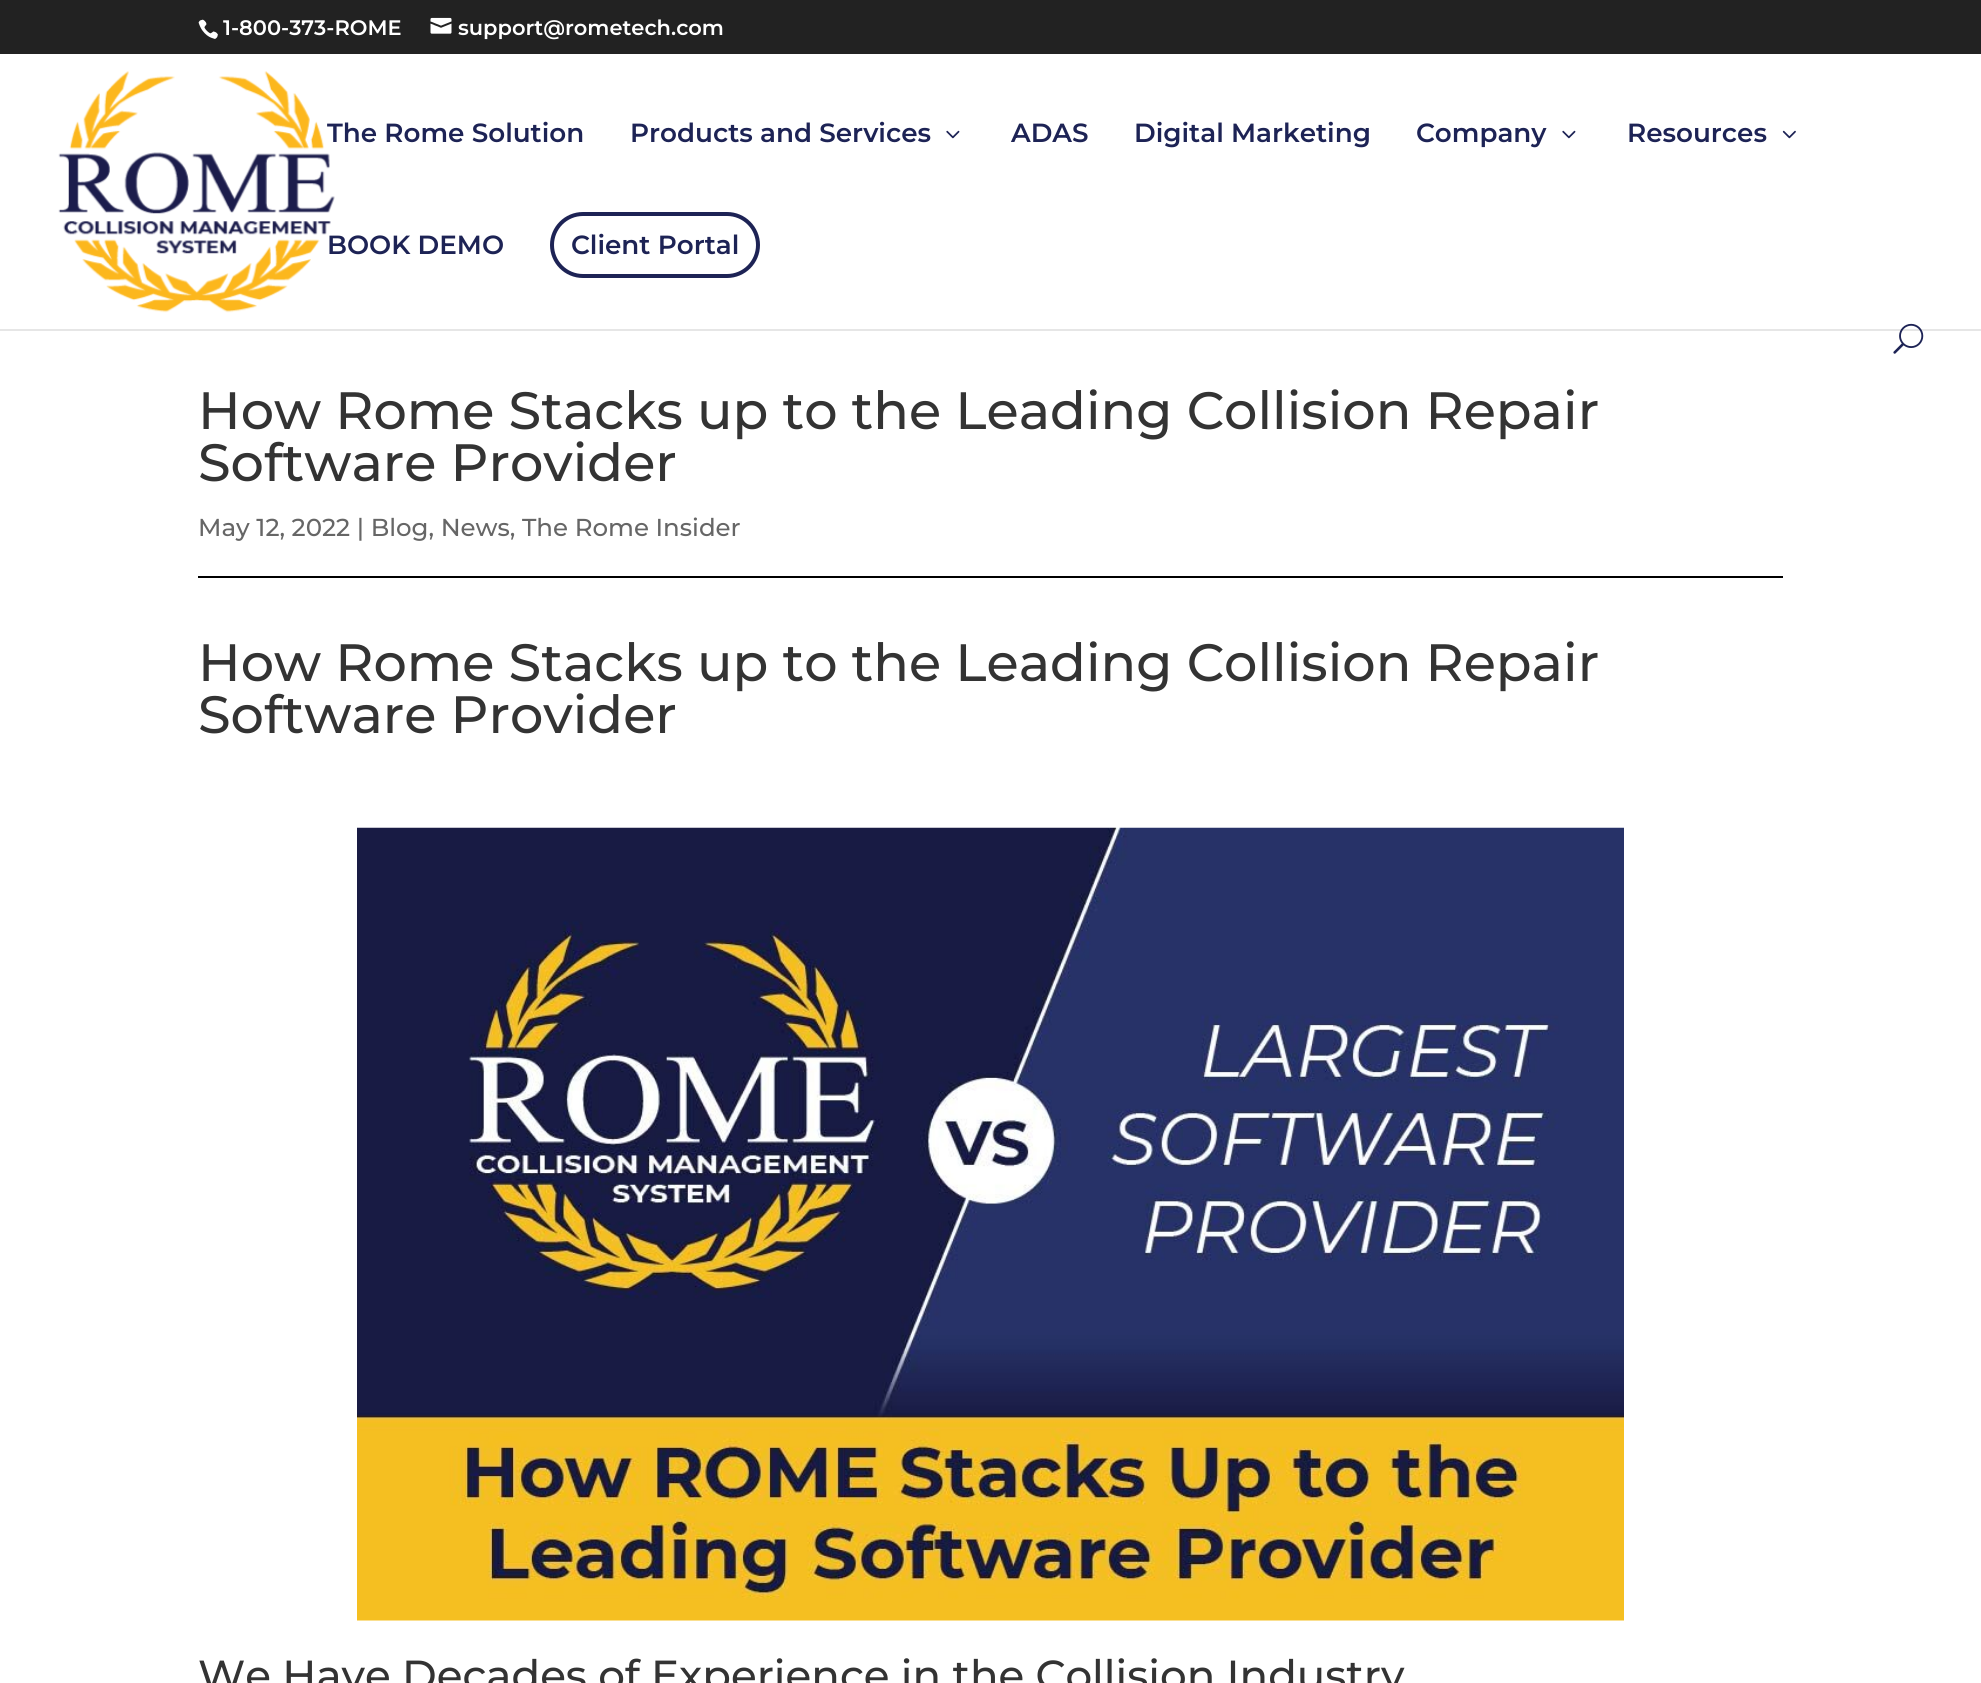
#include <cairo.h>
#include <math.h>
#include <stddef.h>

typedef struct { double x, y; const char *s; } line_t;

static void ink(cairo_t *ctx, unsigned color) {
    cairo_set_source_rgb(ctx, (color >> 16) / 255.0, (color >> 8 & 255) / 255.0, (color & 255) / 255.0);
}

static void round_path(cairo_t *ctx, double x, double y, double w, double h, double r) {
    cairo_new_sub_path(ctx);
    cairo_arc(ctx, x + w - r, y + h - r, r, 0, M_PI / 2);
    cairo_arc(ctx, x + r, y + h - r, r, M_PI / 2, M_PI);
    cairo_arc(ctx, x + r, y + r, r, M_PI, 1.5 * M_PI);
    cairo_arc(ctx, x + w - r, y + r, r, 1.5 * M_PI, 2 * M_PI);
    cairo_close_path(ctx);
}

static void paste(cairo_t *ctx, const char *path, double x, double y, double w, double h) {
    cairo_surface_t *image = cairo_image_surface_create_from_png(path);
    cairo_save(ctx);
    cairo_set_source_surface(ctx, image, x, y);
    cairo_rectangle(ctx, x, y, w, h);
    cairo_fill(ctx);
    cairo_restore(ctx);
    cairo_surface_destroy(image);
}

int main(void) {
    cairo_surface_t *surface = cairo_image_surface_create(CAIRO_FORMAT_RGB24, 1981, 1683);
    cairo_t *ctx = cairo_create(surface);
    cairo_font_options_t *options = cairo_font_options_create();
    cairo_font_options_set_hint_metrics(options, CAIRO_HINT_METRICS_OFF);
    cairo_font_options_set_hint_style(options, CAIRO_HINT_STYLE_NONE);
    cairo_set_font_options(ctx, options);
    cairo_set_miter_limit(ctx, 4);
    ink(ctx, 0xFFFFFF);
    cairo_paint(ctx);
    ink(ctx, 0x222222);
    cairo_rectangle(ctx, 0, 0, 1981, 54);
    cairo_fill(ctx);
    paste(ctx, "media/1.png", 198, 19, 20, 20);
    cairo_select_font_face(ctx, "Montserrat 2 Thin", CAIRO_FONT_SLANT_NORMAL, CAIRO_FONT_WEIGHT_NORMAL);
    cairo_set_font_size(ctx, 21);
    ink(ctx, 0xFFFFFF);
    cairo_move_to(ctx, 223, 35);
    cairo_show_text(ctx, "1-800-373-ROME");
    paste(ctx, "media/2.png", 430, 17, 22, 17);
    cairo_move_to(ctx, 458, 35);
    cairo_show_text(ctx, "support@rometech.com");
    ink(ctx, 0xE6E6E6);
    cairo_rectangle(ctx, 0, 329, 1981, 2);
    cairo_fill(ctx);
    paste(ctx, "media/3.png", 58, 71, 277, 242);
    cairo_set_font_size(ctx, 26.25);
    ink(ctx, 0x1D2355);
    cairo_move_to(ctx, 327, 142);
    cairo_show_text(ctx, "The Rome Solution");
    cairo_move_to(ctx, 630, 142);
    cairo_show_text(ctx, "Products and Services");
    paste(ctx, "media/4.png", 946, 130, 14, 9);
    {
        static const line_t items[] = {
            {1011, 142, "ADAS"},
            {1134, 142, "Digital Marketing"},
            {1416, 142, "Company"},
        };
        for (size_t i = 0; i < sizeof items / sizeof *items; i++) {
            cairo_move_to(ctx, items[i].x, items[i].y);
            cairo_show_text(ctx, items[i].s);
        }
    }
    paste(ctx, "media/4.png", 1562, 130, 14, 9);
    cairo_move_to(ctx, 1627, 142);
    cairo_show_text(ctx, "Resources");
    paste(ctx, "media/5.png", 1782, 130, 14, 9);
    cairo_move_to(ctx, 327, 254);
    cairo_show_text(ctx, "BOOK DEMO");
    round_path(ctx, 552, 214, 206, 62, 31);
    cairo_set_line_width(ctx, 4);
    cairo_stroke(ctx);
    cairo_move_to(ctx, 571, 254);
    cairo_show_text(ctx, "Client Portal");
    paste(ctx, "media/6.png", 1893, 323, 31, 31);
    cairo_select_font_face(ctx, "Montserrat Thin", CAIRO_FONT_SLANT_NORMAL, CAIRO_FONT_WEIGHT_NORMAL);
    cairo_set_font_size(ctx, 52.5);
    ink(ctx, 0x333333);
    cairo_move_to(ctx, 198, 429);
    cairo_show_text(ctx, "How Rome Stacks up to the Leading Collision Repair");
    cairo_move_to(ctx, 198, 481);
    cairo_show_text(ctx, "Software Provider");
    ink(ctx, 0x000000);
    cairo_rectangle(ctx, 198, 576, 1585, 2);
    cairo_fill(ctx);
    cairo_set_font_size(ctx, 24.5);
    ink(ctx, 0x666666);
    cairo_move_to(ctx, 198, 536);
    cairo_show_text(ctx, "May 12, 2022 | Blog, News, The Rome Insider");
    cairo_set_font_size(ctx, 52.5);
    ink(ctx, 0x333333);
    cairo_move_to(ctx, 198, 681);
    cairo_show_text(ctx, "How Rome Stacks up to the Leading Collision Repair");
    cairo_move_to(ctx, 198, 733);
    cairo_show_text(ctx, "Software Provider");
    paste(ctx, "media/7.png", 357, 827, 1267, 794);
    cairo_set_font_size(ctx, 42);
    cairo_move_to(ctx, 198, 1690);
    cairo_show_text(ctx, "We Have Decades of Experience in the Collision Industry");
    cairo_surface_write_to_png(surface, "image.png");
    cairo_font_options_destroy(options);
    cairo_destroy(ctx);
    cairo_surface_destroy(surface);
    return 0;
}
